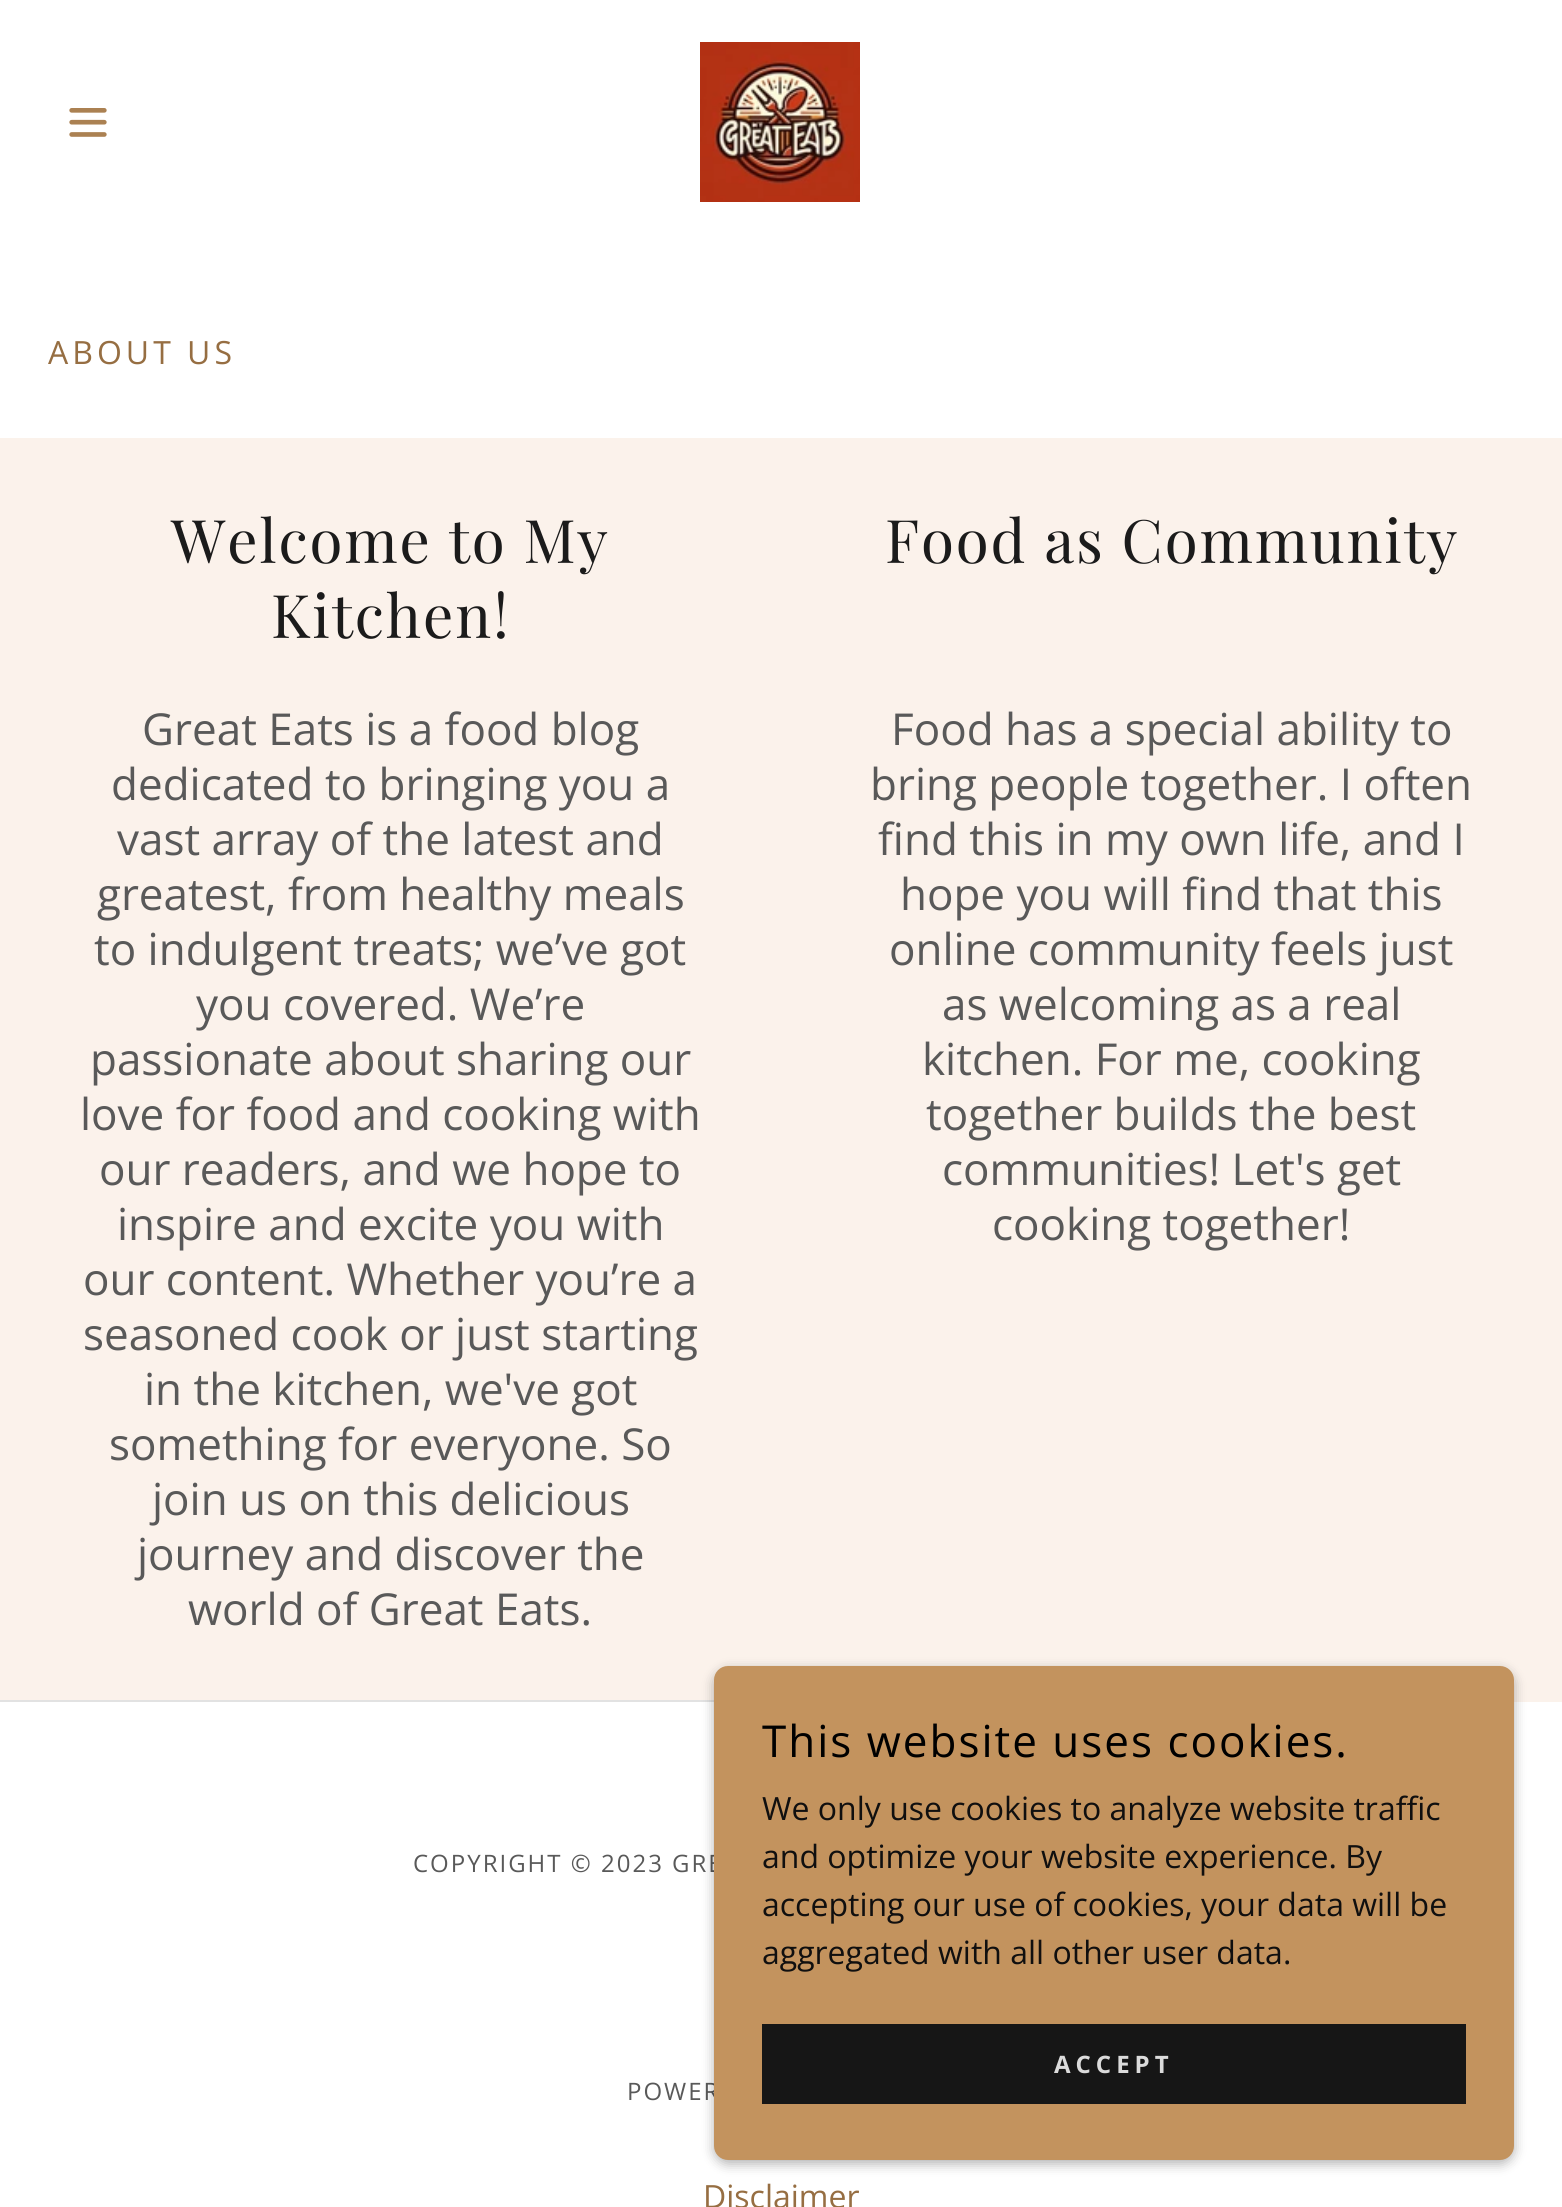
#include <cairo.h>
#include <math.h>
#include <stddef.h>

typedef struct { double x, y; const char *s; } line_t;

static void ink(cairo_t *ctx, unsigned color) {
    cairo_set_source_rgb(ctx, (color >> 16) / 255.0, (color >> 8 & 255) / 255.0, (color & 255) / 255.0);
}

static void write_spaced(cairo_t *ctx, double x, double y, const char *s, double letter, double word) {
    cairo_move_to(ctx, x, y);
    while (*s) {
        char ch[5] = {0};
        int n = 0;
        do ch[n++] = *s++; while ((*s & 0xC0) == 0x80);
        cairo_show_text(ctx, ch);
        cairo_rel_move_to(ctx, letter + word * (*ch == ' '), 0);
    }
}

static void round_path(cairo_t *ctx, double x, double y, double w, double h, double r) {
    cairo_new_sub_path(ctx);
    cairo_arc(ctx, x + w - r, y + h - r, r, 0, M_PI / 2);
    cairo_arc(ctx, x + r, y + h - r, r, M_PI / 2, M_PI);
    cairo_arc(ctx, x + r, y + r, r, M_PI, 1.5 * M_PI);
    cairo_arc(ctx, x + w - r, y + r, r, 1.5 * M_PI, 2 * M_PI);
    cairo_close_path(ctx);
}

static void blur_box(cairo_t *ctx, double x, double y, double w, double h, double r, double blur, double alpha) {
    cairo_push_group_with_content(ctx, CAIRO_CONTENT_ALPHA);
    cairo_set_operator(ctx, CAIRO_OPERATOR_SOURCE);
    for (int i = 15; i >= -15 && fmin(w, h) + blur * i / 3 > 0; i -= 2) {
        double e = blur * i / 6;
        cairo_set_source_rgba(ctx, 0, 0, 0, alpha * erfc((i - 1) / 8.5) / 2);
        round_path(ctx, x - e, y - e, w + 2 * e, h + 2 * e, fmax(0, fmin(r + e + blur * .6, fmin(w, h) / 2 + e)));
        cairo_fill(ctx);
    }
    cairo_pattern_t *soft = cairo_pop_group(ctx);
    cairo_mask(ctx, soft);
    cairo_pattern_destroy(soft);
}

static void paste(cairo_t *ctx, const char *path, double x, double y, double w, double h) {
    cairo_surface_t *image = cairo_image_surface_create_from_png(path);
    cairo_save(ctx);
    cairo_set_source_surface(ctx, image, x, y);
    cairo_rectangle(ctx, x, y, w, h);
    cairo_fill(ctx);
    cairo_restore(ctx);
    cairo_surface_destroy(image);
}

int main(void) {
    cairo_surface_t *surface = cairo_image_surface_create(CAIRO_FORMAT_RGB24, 1562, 2207);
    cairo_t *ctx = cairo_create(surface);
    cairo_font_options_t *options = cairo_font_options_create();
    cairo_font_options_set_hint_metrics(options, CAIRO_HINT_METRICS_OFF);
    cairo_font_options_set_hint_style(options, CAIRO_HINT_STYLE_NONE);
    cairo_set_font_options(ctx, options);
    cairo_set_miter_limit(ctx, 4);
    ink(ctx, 0xFFFFFF);
    cairo_paint(ctx);
    paste(ctx, "media/1.png", 69, 108, 38, 29);
    paste(ctx, "media/2.png", 700, 42, 160, 160);
    cairo_select_font_face(ctx, "Open Sans", CAIRO_FONT_SLANT_NORMAL, CAIRO_FONT_WEIGHT_NORMAL);
    cairo_set_font_size(ctx, 32);
    ink(ctx, 0x966E42);
    write_spaced(ctx, 48, 364, "ABOUT US", 4, 0);
    ink(ctx, 0xFBF2EB);
    cairo_rectangle(ctx, 0, 438, 782, 1262);
    cairo_fill(ctx);
    ink(ctx, 0xE2E2E2);
    cairo_rectangle(ctx, 0, 1700, 714, 2);
    cairo_fill(ctx);
    cairo_select_font_face(ctx, "Playfair Display", CAIRO_FONT_SLANT_NORMAL, CAIRO_FONT_WEIGHT_NORMAL);
    cairo_set_font_size(ctx, 60);
    ink(ctx, 0x1B1B1B);
    write_spaced(ctx, 171, 563, "Welcome to My", 1.9, 0);
    write_spaced(ctx, 271, 638, "Kitchen!", 1.9, 0);
    cairo_select_font_face(ctx, "Open Sans", CAIRO_FONT_SLANT_NORMAL, CAIRO_FONT_WEIGHT_NORMAL);
    cairo_set_font_size(ctx, 44);
    ink(ctx, 0x595959);
    {
        static const line_t items[] = {
            {142, 745, "Great Eats is a food blog"},
            {111, 800, "dedicated to bringing you a"},
            {117, 855, "vast array of the latest and"},
            {97, 910, "greatest, from healthy meals"},
            {94, 965, "to indulgent treats; we’ve got"},
            {196, 1020, "you covered. We’re"},
            {90, 1075, "passionate about sharing our"},
            {80, 1130, "love for food and cooking with"},
            {99, 1185, "our readers, and we hope to"},
            {117, 1240, "inspire and excite you with"},
            {83, 1295, "our content. Whether you’re a"},
            {83, 1350, "seasoned cook or just starting"},
            {144, 1405, "in the kitchen, we've got"},
            {109, 1460, "something for everyone. So"},
            {152, 1515, "join us on this delicious"},
            {137, 1570, "journey and discover the"},
            {188, 1625, "world of Great Eats."},
        };
        for (size_t i = 0; i < sizeof items / sizeof *items; i++) {
            cairo_move_to(ctx, items[i].x, items[i].y);
            cairo_show_text(ctx, items[i].s);
        }
    }
    ink(ctx, 0xFBF2EB);
    cairo_rectangle(ctx, 782, 438, 780, 1264);
    cairo_fill(ctx);
    cairo_select_font_face(ctx, "Playfair Display", CAIRO_FONT_SLANT_NORMAL, CAIRO_FONT_WEIGHT_NORMAL);
    cairo_set_font_size(ctx, 60);
    ink(ctx, 0x1B1B1B);
    write_spaced(ctx, 885, 563, "Food as Community", 1.9, 0);
    cairo_select_font_face(ctx, "Open Sans", CAIRO_FONT_SLANT_NORMAL, CAIRO_FONT_WEIGHT_NORMAL);
    cairo_set_font_size(ctx, 44);
    ink(ctx, 0x595959);
    {
        static const line_t items[] = {
            {891, 745, "Food has a special ability to"},
            {870, 800, "bring people together. I often"},
            {878, 855, "find this in my own life, and I"},
            {900, 910, "hope you will find that this"},
            {889, 965, "online community feels just"},
            {942, 1020, "as welcoming as a real"},
            {922, 1075, "kitchen. For me, cooking"},
            {926, 1130, "together builds the best"},
            {942, 1185, "communities! Let's get"},
            {992, 1240, "cooking together!"},
        };
        for (size_t i = 0; i < sizeof items / sizeof *items; i++) {
            cairo_move_to(ctx, items[i].x, items[i].y);
            cairo_show_text(ctx, items[i].s);
        }
    }
    cairo_set_font_size(ctx, 24);
    write_spaced(ctx, 413, 1872, "COPYRIGHT © 2023 GRE", 2, 0);
    write_spaced(ctx, 627, 2100, "POWER", 2, 0);
    cairo_set_font_size(ctx, 32);
    ink(ctx, 0x966E42);
    cairo_move_to(ctx, 703, 2208);
    cairo_show_text(ctx, "Disclaimer");
    ink(ctx, 0x000000);
    blur_box(ctx, 714, 1670, 800, 494, 14, 6, 0.3);
    ink(ctx, 0xC3935E);
    round_path(ctx, 714, 1666, 800, 494, 14);
    cairo_fill(ctx);
    cairo_set_font_size(ctx, 44);
    ink(ctx, 0x000000);
    write_spaced(ctx, 762, 1757, "This website uses cookies.", 2, 0);
    cairo_set_font_size(ctx, 32);
    ink(ctx, 0x100F0F);
    {
        static const line_t items[] = {
            {762, 1820, "We only use cookies to analyze website traffic"},
            {762, 1868, "and optimize your website experience. By"},
            {762, 1916, "accepting our use of cookies, your data will be"},
            {762, 1964, "aggregated with all other user data."},
        };
        for (size_t i = 0; i < sizeof items / sizeof *items; i++) {
            cairo_move_to(ctx, items[i].x, items[i].y);
            cairo_show_text(ctx, items[i].s);
        }
    }
    ink(ctx, 0x161616);
    cairo_rectangle(ctx, 762, 2024, 704, 80);
    cairo_fill(ctx);
    cairo_select_font_face(ctx, "Open Sans", CAIRO_FONT_SLANT_NORMAL, CAIRO_FONT_WEIGHT_BOLD);
    cairo_set_font_size(ctx, 24);
    ink(ctx, 0xDBDBDB);
    write_spaced(ctx, 1054, 2073, "ACCEPT", 5, 0);
    cairo_surface_write_to_png(surface, "image.png");
    cairo_font_options_destroy(options);
    cairo_destroy(ctx);
    cairo_surface_destroy(surface);
    return 0;
}
